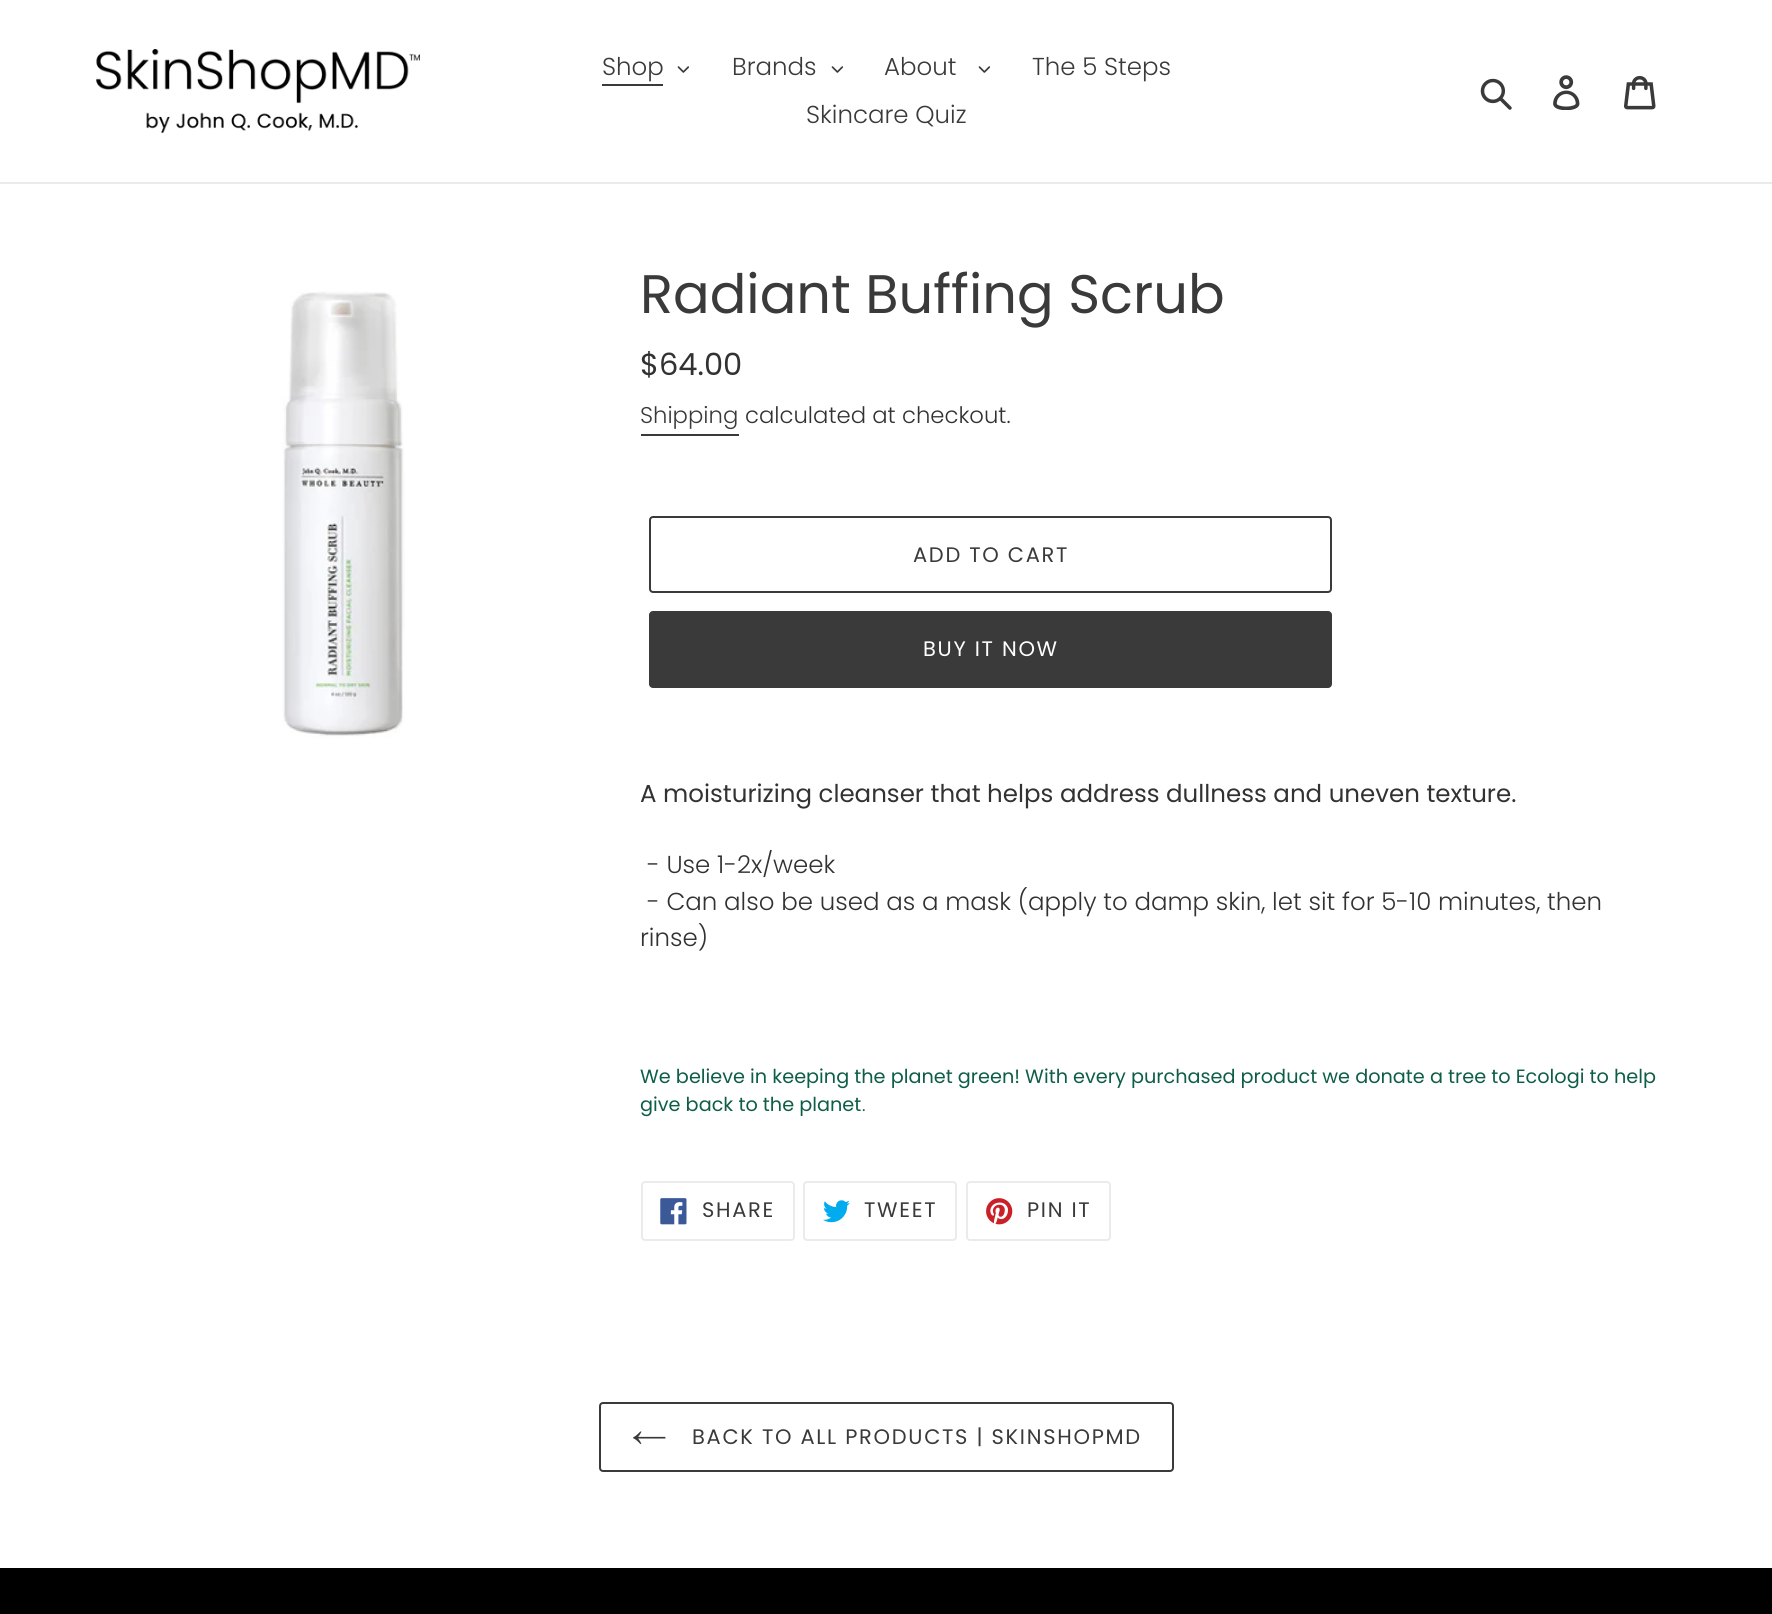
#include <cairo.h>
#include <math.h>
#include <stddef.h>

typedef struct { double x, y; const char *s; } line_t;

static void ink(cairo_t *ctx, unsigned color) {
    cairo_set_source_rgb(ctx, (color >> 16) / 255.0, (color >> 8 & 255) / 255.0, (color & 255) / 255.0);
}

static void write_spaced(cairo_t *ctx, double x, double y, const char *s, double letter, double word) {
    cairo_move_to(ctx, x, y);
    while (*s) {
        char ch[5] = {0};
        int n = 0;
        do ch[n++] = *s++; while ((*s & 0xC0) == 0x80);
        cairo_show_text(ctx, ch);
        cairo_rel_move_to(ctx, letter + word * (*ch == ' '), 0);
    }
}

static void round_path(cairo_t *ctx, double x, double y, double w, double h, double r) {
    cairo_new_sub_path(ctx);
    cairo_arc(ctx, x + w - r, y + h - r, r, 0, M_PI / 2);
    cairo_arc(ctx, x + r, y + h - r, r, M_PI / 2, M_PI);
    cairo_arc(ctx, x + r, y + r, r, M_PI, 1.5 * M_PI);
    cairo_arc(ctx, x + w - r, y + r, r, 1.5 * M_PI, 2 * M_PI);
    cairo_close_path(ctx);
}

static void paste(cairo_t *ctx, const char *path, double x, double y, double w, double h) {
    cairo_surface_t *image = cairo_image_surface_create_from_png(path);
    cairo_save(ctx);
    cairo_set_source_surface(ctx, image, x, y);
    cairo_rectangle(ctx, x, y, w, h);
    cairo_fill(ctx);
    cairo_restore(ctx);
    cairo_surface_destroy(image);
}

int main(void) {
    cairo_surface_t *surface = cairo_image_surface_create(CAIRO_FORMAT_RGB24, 1772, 1614);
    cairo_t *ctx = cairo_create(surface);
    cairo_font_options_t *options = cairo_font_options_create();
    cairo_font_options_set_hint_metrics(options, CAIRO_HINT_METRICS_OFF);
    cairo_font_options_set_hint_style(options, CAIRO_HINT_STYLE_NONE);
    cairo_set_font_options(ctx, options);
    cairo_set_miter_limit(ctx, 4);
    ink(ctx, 0xFFFFFF);
    cairo_paint(ctx);
    ink(ctx, 0xEBEBEB);
    cairo_rectangle(ctx, 0, 182, 1772, 2);
    cairo_fill(ctx);
    paste(ctx, "media/1.png", 96, 49, 324, 84);
    cairo_select_font_face(ctx, "Poppins Light", CAIRO_FONT_SLANT_NORMAL, CAIRO_FONT_WEIGHT_NORMAL);
    cairo_set_font_size(ctx, 24.5);
    ink(ctx, 0x3A3A3A);
    cairo_move_to(ctx, 602, 75);
    cairo_show_text(ctx, "Shop");
    cairo_rectangle(ctx, 602, 84, 61, 2);
    cairo_fill(ctx);
    paste(ctx, "media/2.png", 677, 66, 13, 7);
    cairo_move_to(ctx, 732, 75);
    cairo_show_text(ctx, "Brands");
    paste(ctx, "media/2.png", 831, 66, 13, 7);
    cairo_move_to(ctx, 884, 75);
    cairo_show_text(ctx, "About");
    paste(ctx, "media/2.png", 978, 66, 13, 7);
    cairo_move_to(ctx, 1032, 75);
    cairo_show_text(ctx, "The 5 Steps");
    cairo_move_to(ctx, 806, 123);
    cairo_show_text(ctx, "Skincare Quiz");
    paste(ctx, "media/3.png", 1480, 78, 32, 32);
    paste(ctx, "media/4.png", 1553, 75, 27, 35);
    paste(ctx, "media/5.png", 1624, 75, 32, 35);
    paste(ctx, "media/6.png", 282, 290, 123, 448);
    cairo_select_font_face(ctx, "Poppins", CAIRO_FONT_SLANT_NORMAL, CAIRO_FONT_WEIGHT_NORMAL);
    cairo_set_font_size(ctx, 54.25);
    cairo_move_to(ctx, 640, 313);
    cairo_show_text(ctx, "Radiant Buffing Scrub");
    cairo_set_font_size(ctx, 30.5);
    ink(ctx, 0x333232);
    cairo_move_to(ctx, 640, 375);
    cairo_show_text(ctx, "$64.00");
    cairo_select_font_face(ctx, "Poppins Light", CAIRO_FONT_SLANT_NORMAL, CAIRO_FONT_WEIGHT_NORMAL);
    cairo_set_font_size(ctx, 22.75);
    ink(ctx, 0x3A3A3A);
    cairo_move_to(ctx, 640, 423);
    cairo_show_text(ctx, "Shipping");
    cairo_rectangle(ctx, 641, 434, 98, 2);
    cairo_fill(ctx);
    ink(ctx, 0x333232);
    cairo_move_to(ctx, 745, 423);
    cairo_show_text(ctx, "calculated at checkout.");
    round_path(ctx, 650, 517, 681, 75, 3);
    ink(ctx, 0x3A3A3A);
    cairo_stroke(ctx);
    cairo_select_font_face(ctx, "Poppins", CAIRO_FONT_SLANT_NORMAL, CAIRO_FONT_WEIGHT_NORMAL);
    cairo_set_font_size(ctx, 21);
    write_spaced(ctx, 913, 562, "ADD TO CART", 1.7, 0);
    round_path(ctx, 649, 611, 683, 77, 4);
    cairo_fill(ctx);
    ink(ctx, 0xFFFFFF);
    write_spaced(ctx, 923, 656, "BUY IT NOW", 1.7, 0);
    cairo_set_font_size(ctx, 24.5);
    ink(ctx, 0x333232);
    cairo_move_to(ctx, 640, 802);
    cairo_show_text(ctx, "A moisturizing cleanser that helps address dullness and uneven texture.");
    cairo_select_font_face(ctx, "Poppins Light", CAIRO_FONT_SLANT_NORMAL, CAIRO_FONT_WEIGHT_NORMAL);
    {
        static const line_t items[] = {
            {647, 873, "- Use 1-2x/week"},
            {647, 910, "- Can also be used as a mask (apply to damp skin, let sit for 5-10 minutes, then"},
            {640, 946, "rinse)"},
        };
        for (size_t i = 0; i < sizeof items / sizeof *items; i++) {
            cairo_move_to(ctx, items[i].x, items[i].y);
            cairo_show_text(ctx, items[i].s);
        }
    }
    cairo_select_font_face(ctx, "Poppins", CAIRO_FONT_SLANT_NORMAL, CAIRO_FONT_WEIGHT_NORMAL);
    cairo_set_font_size(ctx, 19.25);
    ink(ctx, 0x0E5E47);
    cairo_move_to(ctx, 640, 1083);
    cairo_show_text(ctx, "We believe in keeping the planet green! With every purchased product we donate a tree to Ecologi to help");
    cairo_move_to(ctx, 640, 1111);
    cairo_show_text(ctx, "give back to the planet");
    cairo_select_font_face(ctx, "Poppins Light", CAIRO_FONT_SLANT_NORMAL, CAIRO_FONT_WEIGHT_NORMAL);
    cairo_move_to(ctx, 862, 1111);
    cairo_show_text(ctx, ".");
    round_path(ctx, 642, 1182, 152, 58, 3);
    ink(ctx, 0xEBEBEB);
    cairo_stroke(ctx);
    paste(ctx, "media/7.png", 660, 1198, 27, 27);
    cairo_select_font_face(ctx, "Poppins", CAIRO_FONT_SLANT_NORMAL, CAIRO_FONT_WEIGHT_NORMAL);
    cairo_set_font_size(ctx, 21);
    ink(ctx, 0x3A3A3A);
    write_spaced(ctx, 702, 1217, "SHARE", 1.7, 0);
    round_path(ctx, 804, 1182, 152, 58, 3);
    ink(ctx, 0xEBEBEB);
    cairo_stroke(ctx);
    paste(ctx, "media/8.png", 823, 1200, 27, 23);
    ink(ctx, 0x3A3A3A);
    write_spaced(ctx, 864, 1217, "TWEET", 1.7, 0);
    round_path(ctx, 967, 1182, 143, 58, 3);
    ink(ctx, 0xEBEBEB);
    cairo_stroke(ctx);
    paste(ctx, "media/9.png", 986, 1198, 27, 27);
    ink(ctx, 0x3A3A3A);
    write_spaced(ctx, 1027, 1217, "PIN IT", 1.7, 0);
    round_path(ctx, 600, 1403, 573, 68, 3);
    cairo_stroke(ctx);
    paste(ctx, "media/10.png", 633, 1431, 33, 13);
    write_spaced(ctx, 692, 1444, "BACK TO ALL PRODUCTS | SKINSHOPMD", 1.7, 0);
    ink(ctx, 0x000000);
    cairo_rectangle(ctx, 0, 1568, 1772, 46);
    cairo_fill(ctx);
    cairo_surface_write_to_png(surface, "image.png");
    cairo_font_options_destroy(options);
    cairo_destroy(ctx);
    cairo_surface_destroy(surface);
    return 0;
}
